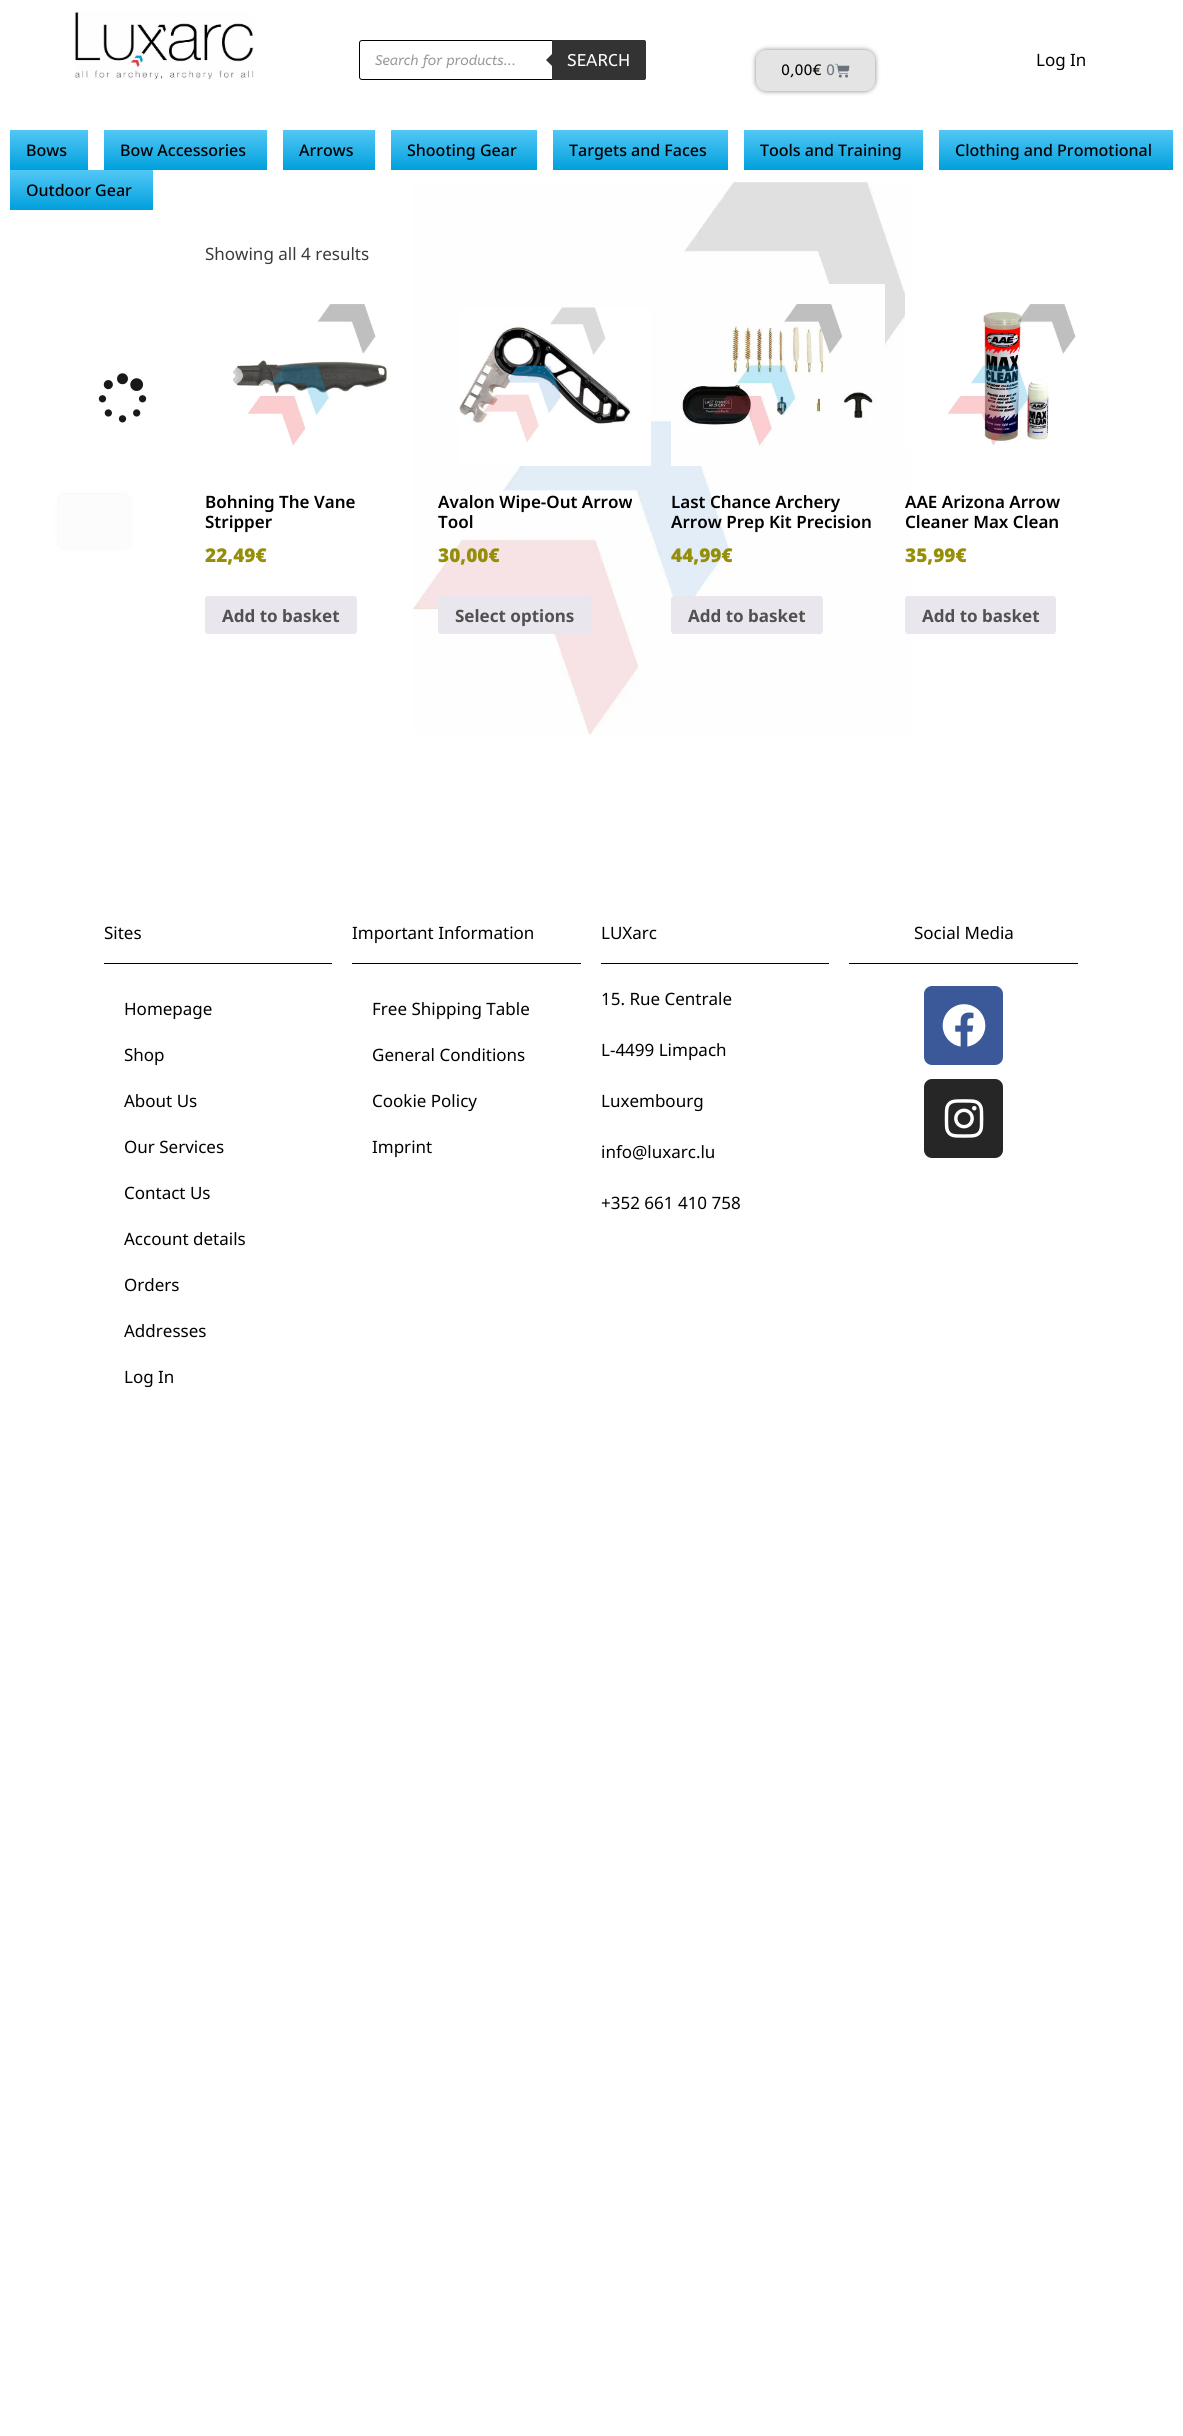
#include <cairo.h>
#include <math.h>
#include <stddef.h>

typedef struct { double x, y; const char *s; } line_t;

static void ink(cairo_t *ctx, unsigned color) {
    cairo_set_source_rgb(ctx, (color >> 16) / 255.0, (color >> 8 & 255) / 255.0, (color & 255) / 255.0);
}

static void round_path(cairo_t *ctx, double x, double y, double w, double h, double r) {
    cairo_new_sub_path(ctx);
    cairo_arc(ctx, x + w - r, y + h - r, r, 0, M_PI / 2);
    cairo_arc(ctx, x + r, y + h - r, r, M_PI / 2, M_PI);
    cairo_arc(ctx, x + r, y + r, r, M_PI, 1.5 * M_PI);
    cairo_arc(ctx, x + w - r, y + r, r, 1.5 * M_PI, 2 * M_PI);
    cairo_close_path(ctx);
}

static void blur_box(cairo_t *ctx, double x, double y, double w, double h, double r, double blur, double alpha) {
    cairo_push_group_with_content(ctx, CAIRO_CONTENT_ALPHA);
    cairo_set_operator(ctx, CAIRO_OPERATOR_SOURCE);
    for (int i = 15; i >= -15 && fmin(w, h) + blur * i / 3 > 0; i -= 2) {
        double e = blur * i / 6;
        cairo_set_source_rgba(ctx, 0, 0, 0, alpha * erfc((i - 1) / 8.5) / 2);
        round_path(ctx, x - e, y - e, w + 2 * e, h + 2 * e, fmax(0, fmin(r + e + blur * .6, fmin(w, h) / 2 + e)));
        cairo_fill(ctx);
    }
    cairo_pattern_t *soft = cairo_pop_group(ctx);
    cairo_mask(ctx, soft);
    cairo_pattern_destroy(soft);
}

static void paste(cairo_t *ctx, const char *path, double x, double y, double w, double h) {
    cairo_surface_t *image = cairo_image_surface_create_from_png(path);
    cairo_save(ctx);
    cairo_set_source_surface(ctx, image, x, y);
    cairo_rectangle(ctx, x, y, w, h);
    cairo_fill(ctx);
    cairo_restore(ctx);
    cairo_surface_destroy(image);
}

int main(void) {
    cairo_surface_t *surface = cairo_image_surface_create(CAIRO_FORMAT_RGB24, 1183, 2436);
    cairo_t *ctx = cairo_create(surface);
    cairo_font_options_t *options = cairo_font_options_create();
    cairo_font_options_set_hint_metrics(options, CAIRO_HINT_METRICS_OFF);
    cairo_font_options_set_hint_style(options, CAIRO_HINT_STYLE_NONE);
    cairo_set_font_options(ctx, options);
    cairo_set_miter_limit(ctx, 4);
    cairo_pattern_t *gradient;
    ink(ctx, 0xFFFFFF);
    cairo_paint(ctx);
    paste(ctx, "media/1.png", 413, 182, 497, 553);
    paste(ctx, "media/2.png", 74, 11, 180, 69);
    round_path(ctx, 359.5, 40.5, 286, 39, 2.5);
    ink(ctx, 0x000000);
    cairo_set_line_width(ctx, 1);
    cairo_stroke(ctx);
    cairo_select_font_face(ctx, "ABeeZee", CAIRO_FONT_SLANT_ITALIC, CAIRO_FONT_WEIGHT_NORMAL);
    cairo_set_font_size(ctx, 14);
    ink(ctx, 0x999999);
    cairo_move_to(ctx, 375, 65);
    cairo_show_text(ctx, "Search for products...");
    ink(ctx, 0x333333);
    cairo_new_path(ctx);
    cairo_move_to(ctx, 552, 40);
    cairo_line_to(ctx, 644, 40);
    cairo_curve_to(ctx, 645, 40, 646, 41, 646, 42);
    cairo_line_to(ctx, 646, 78);
    cairo_curve_to(ctx, 646, 79, 645, 80, 644, 80);
    cairo_line_to(ctx, 552, 80);
    cairo_close_path(ctx);
    cairo_fill(ctx);
    cairo_new_path(ctx);
    cairo_move_to(ctx, 554, 52);
    cairo_line_to(ctx, 554, 68);
    cairo_line_to(ctx, 546, 60);
    cairo_close_path(ctx);
    cairo_fill(ctx);
    cairo_select_font_face(ctx, "ABeeZee", CAIRO_FONT_SLANT_NORMAL, CAIRO_FONT_WEIGHT_NORMAL);
    cairo_set_font_size(ctx, 17);
    ink(ctx, 0xFFFFFF);
    cairo_move_to(ctx, 567, 66);
    cairo_show_text(ctx, "SEARCH");
    ink(ctx, 0x000000);
    blur_box(ctx, 756, 50, 119, 41, 10, 2.5, 0.5);
    ink(ctx, 0xE4E4E4);
    round_path(ctx, 756.5, 50.5, 118, 40, 9.5);
    cairo_fill_preserve(ctx);
    cairo_stroke(ctx);
    cairo_set_font_size(ctx, 15);
    ink(ctx, 0x000000);
    cairo_move_to(ctx, 781, 75);
    cairo_show_text(ctx, "0,00€");
    ink(ctx, 0x69727D);
    cairo_move_to(ctx, 826, 75);
    cairo_show_text(ctx, "0");
    paste(ctx, "media/3.png", 835, 63, 15, 15);
    cairo_select_font_face(ctx, "Noto Sans", CAIRO_FONT_SLANT_NORMAL, CAIRO_FONT_WEIGHT_NORMAL);
    cairo_set_font_size(ctx, 17);
    ink(ctx, 0x000000);
    cairo_move_to(ctx, 1036, 66);
    cairo_show_text(ctx, "Log In");
    gradient = cairo_pattern_create_linear(49, 130, 49, 170);
    cairo_pattern_add_color_stop_rgba(gradient, 0, 0.322, 0.784, 0.961, 1);
    cairo_pattern_add_color_stop_rgba(gradient, 1, 0, 0.627, 0.867, 1);
    cairo_set_source(ctx, gradient);
    cairo_pattern_destroy(gradient);
    cairo_rectangle(ctx, 10, 130, 78, 40);
    cairo_fill(ctx);
    cairo_select_font_face(ctx, "Noto Sans Medium", CAIRO_FONT_SLANT_NORMAL, CAIRO_FONT_WEIGHT_NORMAL);
    cairo_set_font_size(ctx, 16);
    ink(ctx, 0x000000);
    cairo_move_to(ctx, 26, 156);
    cairo_show_text(ctx, "Bows");
    gradient = cairo_pattern_create_linear(186, 130, 186, 170);
    cairo_pattern_add_color_stop_rgba(gradient, 0, 0.322, 0.784, 0.961, 1);
    cairo_pattern_add_color_stop_rgba(gradient, 1, 0, 0.627, 0.867, 1);
    cairo_set_source(ctx, gradient);
    cairo_pattern_destroy(gradient);
    cairo_rectangle(ctx, 104, 130, 163, 40);
    cairo_fill(ctx);
    ink(ctx, 0x000000);
    cairo_move_to(ctx, 120, 156);
    cairo_show_text(ctx, "Bow Accessories");
    gradient = cairo_pattern_create_linear(329, 130, 329, 170);
    cairo_pattern_add_color_stop_rgba(gradient, 0, 0.322, 0.784, 0.961, 1);
    cairo_pattern_add_color_stop_rgba(gradient, 1, 0, 0.627, 0.867, 1);
    cairo_set_source(ctx, gradient);
    cairo_pattern_destroy(gradient);
    cairo_rectangle(ctx, 283, 130, 92, 40);
    cairo_fill(ctx);
    ink(ctx, 0x000000);
    cairo_move_to(ctx, 299, 156);
    cairo_show_text(ctx, "Arrows");
    gradient = cairo_pattern_create_linear(464, 130, 464, 170);
    cairo_pattern_add_color_stop_rgba(gradient, 0, 0.322, 0.784, 0.961, 1);
    cairo_pattern_add_color_stop_rgba(gradient, 1, 0, 0.627, 0.867, 1);
    cairo_set_source(ctx, gradient);
    cairo_pattern_destroy(gradient);
    cairo_rectangle(ctx, 391, 130, 146, 40);
    cairo_fill(ctx);
    ink(ctx, 0x000000);
    cairo_move_to(ctx, 407, 156);
    cairo_show_text(ctx, "Shooting Gear");
    gradient = cairo_pattern_create_linear(641, 130, 641, 170);
    cairo_pattern_add_color_stop_rgba(gradient, 0, 0.322, 0.784, 0.961, 1);
    cairo_pattern_add_color_stop_rgba(gradient, 1, 0, 0.627, 0.867, 1);
    cairo_set_source(ctx, gradient);
    cairo_pattern_destroy(gradient);
    cairo_rectangle(ctx, 553, 130, 175, 40);
    cairo_fill(ctx);
    ink(ctx, 0x000000);
    cairo_move_to(ctx, 569, 156);
    cairo_show_text(ctx, "Targets and Faces");
    gradient = cairo_pattern_create_linear(834, 130, 834, 170);
    cairo_pattern_add_color_stop_rgba(gradient, 0, 0.322, 0.784, 0.961, 1);
    cairo_pattern_add_color_stop_rgba(gradient, 1, 0, 0.627, 0.867, 1);
    cairo_set_source(ctx, gradient);
    cairo_pattern_destroy(gradient);
    cairo_rectangle(ctx, 744, 130, 179, 40);
    cairo_fill(ctx);
    ink(ctx, 0x000000);
    cairo_move_to(ctx, 760, 156);
    cairo_show_text(ctx, "Tools and Training");
    gradient = cairo_pattern_create_linear(1056, 130, 1056, 170);
    cairo_pattern_add_color_stop_rgba(gradient, 0, 0.322, 0.784, 0.961, 1);
    cairo_pattern_add_color_stop_rgba(gradient, 1, 0, 0.627, 0.867, 1);
    cairo_set_source(ctx, gradient);
    cairo_pattern_destroy(gradient);
    cairo_rectangle(ctx, 939, 130, 234, 40);
    cairo_fill(ctx);
    ink(ctx, 0x000000);
    cairo_move_to(ctx, 955, 156);
    cairo_show_text(ctx, "Clothing and Promotional");
    gradient = cairo_pattern_create_linear(82, 170, 82, 210);
    cairo_pattern_add_color_stop_rgba(gradient, 0, 0.322, 0.784, 0.961, 1);
    cairo_pattern_add_color_stop_rgba(gradient, 1, 0, 0.627, 0.867, 1);
    cairo_set_source(ctx, gradient);
    cairo_pattern_destroy(gradient);
    cairo_rectangle(ctx, 10, 170, 143, 40);
    cairo_fill(ctx);
    ink(ctx, 0x000000);
    cairo_move_to(ctx, 26, 196);
    cairo_show_text(ctx, "Outdoor Gear");
    ink(ctx, 0x000000);
    blur_box(ctx, 59, 495, 70, 52, 4, 2.5, 0.5);
    ink(ctx, 0xE4E4E4);
    round_path(ctx, 59, 495, 70, 52, 4);
    cairo_fill(ctx);
    cairo_set_source_rgba(ctx, 1, 1, 1, 0.9);
    cairo_rectangle(ctx, 54, 490, 80, 62);
    cairo_fill(ctx);
    paste(ctx, "media/4.png", 98, 373, 49, 50);
    cairo_select_font_face(ctx, "Noto Sans", CAIRO_FONT_SLANT_NORMAL, CAIRO_FONT_WEIGHT_NORMAL);
    cairo_set_font_size(ctx, 17);
    ink(ctx, 0x3A3A3A);
    cairo_move_to(ctx, 205, 260);
    cairo_show_text(ctx, "Showing all 4 results");
    paste(ctx, "media/5.png", 233, 304, 156, 142);
    cairo_select_font_face(ctx, "Noto Sans SemiBold", CAIRO_FONT_SLANT_NORMAL, CAIRO_FONT_WEIGHT_NORMAL);
    ink(ctx, 0x000000);
    cairo_move_to(ctx, 205, 508);
    cairo_show_text(ctx, "Bohning The Vane");
    cairo_move_to(ctx, 205, 528);
    cairo_show_text(ctx, "Stripper");
    cairo_select_font_face(ctx, "Noto Sans Black", CAIRO_FONT_SLANT_NORMAL, CAIRO_FONT_WEIGHT_NORMAL);
    cairo_set_font_size(ctx, 19);
    ink(ctx, 0x958E09);
    cairo_move_to(ctx, 205, 562);
    cairo_show_text(ctx, "22,49€");
    ink(ctx, 0xE9E6ED);
    round_path(ctx, 205, 596, 152, 38, 3);
    cairo_fill(ctx);
    cairo_select_font_face(ctx, "Noto Sans", CAIRO_FONT_SLANT_NORMAL, CAIRO_FONT_WEIGHT_BOLD);
    cairo_set_font_size(ctx, 17);
    ink(ctx, 0x515151);
    cairo_move_to(ctx, 222, 622);
    cairo_show_text(ctx, "Add to basket");
    paste(ctx, "media/6.png", 459, 307, 192, 159);
    cairo_select_font_face(ctx, "Noto Sans SemiBold", CAIRO_FONT_SLANT_NORMAL, CAIRO_FONT_WEIGHT_NORMAL);
    ink(ctx, 0x000000);
    cairo_move_to(ctx, 438, 508);
    cairo_show_text(ctx, "Avalon Wipe-Out Arrow");
    cairo_move_to(ctx, 438, 528);
    cairo_show_text(ctx, "Tool");
    cairo_select_font_face(ctx, "Noto Sans Black", CAIRO_FONT_SLANT_NORMAL, CAIRO_FONT_WEIGHT_NORMAL);
    cairo_set_font_size(ctx, 19);
    ink(ctx, 0x958E09);
    cairo_move_to(ctx, 438, 562);
    cairo_show_text(ctx, "30,00€");
    ink(ctx, 0xE9E6ED);
    round_path(ctx, 438, 596, 154, 38, 3);
    cairo_fill(ctx);
    cairo_select_font_face(ctx, "Noto Sans", CAIRO_FONT_SLANT_NORMAL, CAIRO_FONT_WEIGHT_BOLD);
    cairo_set_font_size(ctx, 17);
    ink(ctx, 0x515151);
    cairo_move_to(ctx, 455, 622);
    cairo_show_text(ctx, "Select options");
    paste(ctx, "media/7.png", 671, 284, 214, 182);
    cairo_select_font_face(ctx, "Noto Sans SemiBold", CAIRO_FONT_SLANT_NORMAL, CAIRO_FONT_WEIGHT_NORMAL);
    ink(ctx, 0x000000);
    cairo_move_to(ctx, 671, 508);
    cairo_show_text(ctx, "Last Chance Archery");
    cairo_move_to(ctx, 671, 528);
    cairo_show_text(ctx, "Arrow Prep Kit Precision");
    cairo_select_font_face(ctx, "Noto Sans Black", CAIRO_FONT_SLANT_NORMAL, CAIRO_FONT_WEIGHT_NORMAL);
    cairo_set_font_size(ctx, 19);
    ink(ctx, 0x958E09);
    cairo_move_to(ctx, 671, 562);
    cairo_show_text(ctx, "44,99€");
    ink(ctx, 0xE9E6ED);
    round_path(ctx, 671, 596, 152, 38, 3);
    cairo_fill(ctx);
    cairo_select_font_face(ctx, "Noto Sans", CAIRO_FONT_SLANT_NORMAL, CAIRO_FONT_WEIGHT_BOLD);
    cairo_set_font_size(ctx, 17);
    ink(ctx, 0x515151);
    cairo_move_to(ctx, 688, 622);
    cairo_show_text(ctx, "Add to basket");
    paste(ctx, "media/8.png", 905, 293, 171, 153);
    cairo_select_font_face(ctx, "Noto Sans SemiBold", CAIRO_FONT_SLANT_NORMAL, CAIRO_FONT_WEIGHT_NORMAL);
    ink(ctx, 0x000000);
    cairo_move_to(ctx, 905, 508);
    cairo_show_text(ctx, "AAE Arizona Arrow");
    cairo_move_to(ctx, 905, 528);
    cairo_show_text(ctx, "Cleaner Max Clean");
    cairo_select_font_face(ctx, "Noto Sans Black", CAIRO_FONT_SLANT_NORMAL, CAIRO_FONT_WEIGHT_NORMAL);
    cairo_set_font_size(ctx, 19);
    ink(ctx, 0x958E09);
    cairo_move_to(ctx, 905, 562);
    cairo_show_text(ctx, "35,99€");
    ink(ctx, 0xE9E6ED);
    round_path(ctx, 905, 596, 151, 38, 3);
    cairo_fill(ctx);
    cairo_select_font_face(ctx, "Noto Sans", CAIRO_FONT_SLANT_NORMAL, CAIRO_FONT_WEIGHT_BOLD);
    cairo_set_font_size(ctx, 17);
    ink(ctx, 0x515151);
    cairo_move_to(ctx, 922, 622);
    cairo_show_text(ctx, "Add to basket");
    cairo_select_font_face(ctx, "Noto Sans", CAIRO_FONT_SLANT_NORMAL, CAIRO_FONT_WEIGHT_NORMAL);
    ink(ctx, 0x000000);
    cairo_move_to(ctx, 104, 939);
    cairo_show_text(ctx, "Sites");
    cairo_rectangle(ctx, 104, 963, 228, 1);
    cairo_fill(ctx);
    {
        static const line_t items[] = {
            {124, 1015, "Homepage"},
            {124, 1061, "Shop"},
            {124, 1107, "About Us"},
            {124, 1153, "Our Services"},
            {124, 1199, "Contact Us"},
            {124, 1245, "Account details"},
            {124, 1291, "Orders"},
            {124, 1337, "Addresses"},
            {124, 1383, "Log In"},
            {352, 939, "Important Information"},
        };
        for (size_t i = 0; i < sizeof items / sizeof *items; i++) {
            cairo_move_to(ctx, items[i].x, items[i].y);
            cairo_show_text(ctx, items[i].s);
        }
    }
    cairo_rectangle(ctx, 352, 963, 229, 1);
    cairo_fill(ctx);
    {
        static const line_t items[] = {
            {372, 1015, "Free Shipping Table"},
            {372, 1061, "General Conditions"},
            {372, 1107, "Cookie Policy"},
            {372, 1153, "Imprint"},
            {601, 939, "LUXarc"},
        };
        for (size_t i = 0; i < sizeof items / sizeof *items; i++) {
            cairo_move_to(ctx, items[i].x, items[i].y);
            cairo_show_text(ctx, items[i].s);
        }
    }
    cairo_rectangle(ctx, 601, 963, 228, 1);
    cairo_fill(ctx);
    {
        static const line_t items[] = {
            {601, 1005, "15. Rue Centrale"},
            {601, 1056, "L-4499 Limpach"},
            {601, 1107, "Luxembourg"},
            {601, 1158, "info@luxarc.lu"},
            {601, 1209, "+352 661 410 758"},
            {914, 939, "Social Media"},
        };
        for (size_t i = 0; i < sizeof items / sizeof *items; i++) {
            cairo_move_to(ctx, items[i].x, items[i].y);
            cairo_show_text(ctx, items[i].s);
        }
    }
    cairo_rectangle(ctx, 849, 963, 229, 1);
    cairo_fill(ctx);
    ink(ctx, 0x3B5998);
    round_path(ctx, 924, 986, 79, 79, 8);
    cairo_fill(ctx);
    paste(ctx, "media/9.png", 942, 1004, 44, 43);
    ink(ctx, 0x262626);
    round_path(ctx, 924, 1079, 79, 79, 8);
    cairo_fill(ctx);
    paste(ctx, "media/10.png", 944, 1099, 40, 39);
    cairo_surface_write_to_png(surface, "image.png");
    cairo_font_options_destroy(options);
    cairo_destroy(ctx);
    cairo_surface_destroy(surface);
    return 0;
}
